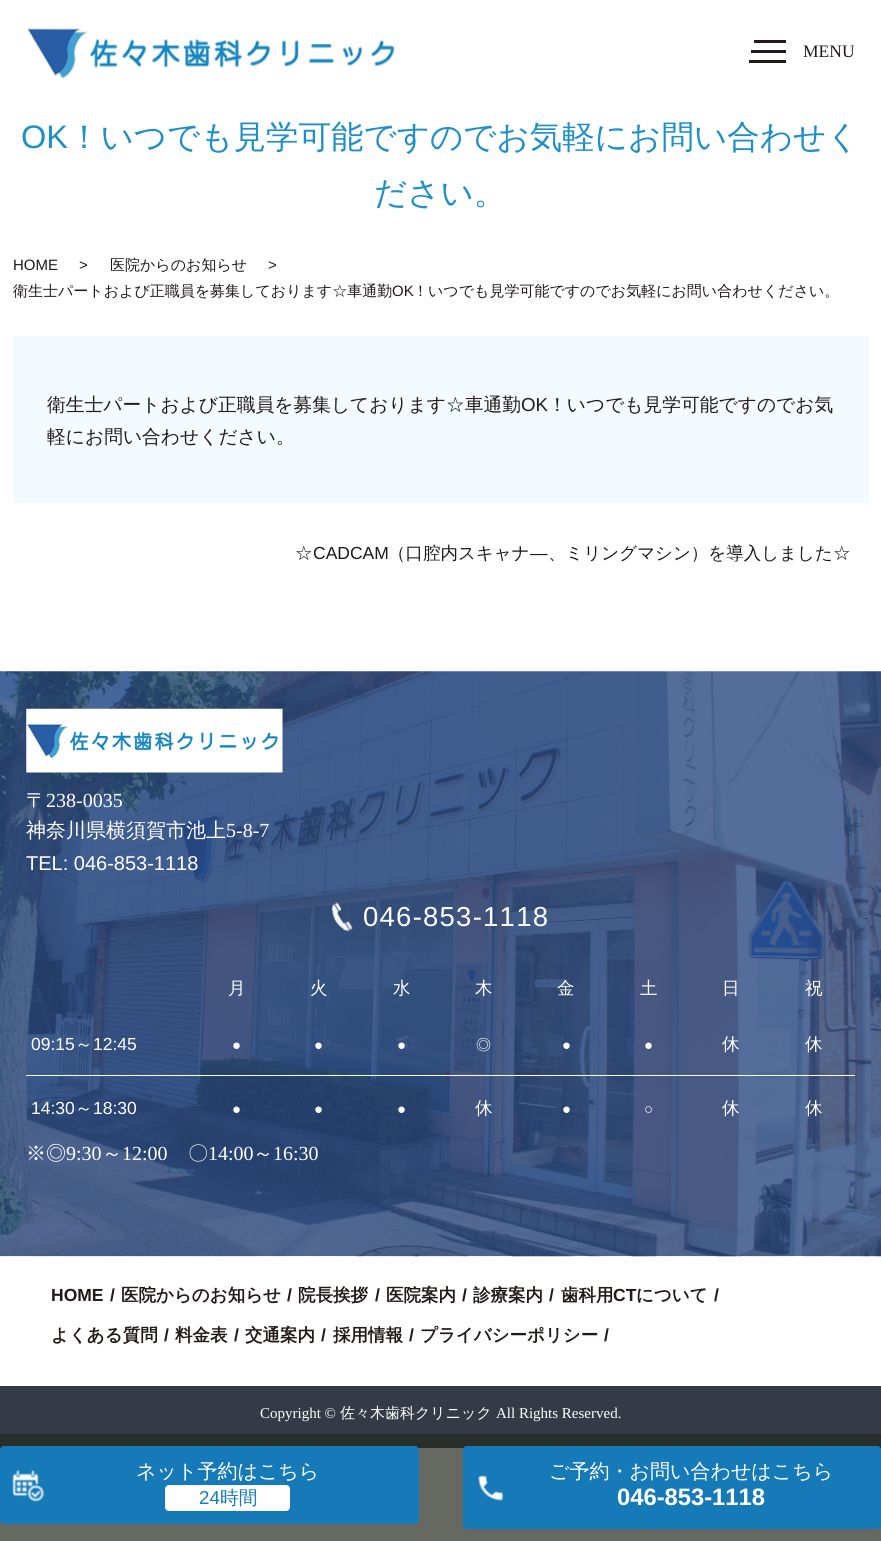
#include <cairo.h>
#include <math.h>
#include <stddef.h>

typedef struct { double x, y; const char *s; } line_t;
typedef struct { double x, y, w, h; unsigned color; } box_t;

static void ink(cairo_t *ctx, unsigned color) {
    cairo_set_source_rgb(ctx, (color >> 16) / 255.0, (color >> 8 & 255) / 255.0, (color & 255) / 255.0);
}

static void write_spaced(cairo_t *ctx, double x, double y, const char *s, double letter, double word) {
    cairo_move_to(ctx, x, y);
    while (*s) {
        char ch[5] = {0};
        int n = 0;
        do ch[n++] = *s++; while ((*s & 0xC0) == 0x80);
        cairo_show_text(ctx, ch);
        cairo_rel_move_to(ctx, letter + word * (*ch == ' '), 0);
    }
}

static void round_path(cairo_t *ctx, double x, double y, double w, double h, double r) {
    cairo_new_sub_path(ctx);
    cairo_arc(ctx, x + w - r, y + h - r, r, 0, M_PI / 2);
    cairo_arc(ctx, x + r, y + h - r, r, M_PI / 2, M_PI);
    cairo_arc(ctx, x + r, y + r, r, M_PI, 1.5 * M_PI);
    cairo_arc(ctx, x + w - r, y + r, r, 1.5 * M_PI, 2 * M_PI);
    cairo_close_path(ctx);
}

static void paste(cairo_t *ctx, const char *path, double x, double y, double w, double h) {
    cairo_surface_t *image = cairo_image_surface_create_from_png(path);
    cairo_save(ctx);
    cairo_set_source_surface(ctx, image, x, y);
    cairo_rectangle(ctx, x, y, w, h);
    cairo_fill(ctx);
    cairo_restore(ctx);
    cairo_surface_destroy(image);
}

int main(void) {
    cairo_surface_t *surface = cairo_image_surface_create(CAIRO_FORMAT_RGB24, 881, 1541);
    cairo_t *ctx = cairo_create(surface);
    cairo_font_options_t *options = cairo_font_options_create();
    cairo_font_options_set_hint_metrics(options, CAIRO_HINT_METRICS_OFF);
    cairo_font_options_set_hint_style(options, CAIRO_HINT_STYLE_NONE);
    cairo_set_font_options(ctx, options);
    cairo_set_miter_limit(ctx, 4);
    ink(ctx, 0xFFFFFF);
    cairo_paint(ctx);
    ink(ctx, 0x656962);
    cairo_rectangle(ctx, 0, 1448, 881, 93);
    cairo_fill(ctx);
    paste(ctx, "media/1.png", 28, 28, 367, 51);
    {
        static const box_t items[] = {
            {751, 50, 35, 3, 0x211A19},
            {754, 40, 32, 3, 0x211A19},
            {749, 60, 37, 3, 0x211A19},
        };
        for (size_t i = 0; i < sizeof items / sizeof *items; i++) {
            ink(ctx, items[i].color);
            cairo_rectangle(ctx, items[i].x, items[i].y, items[i].w, items[i].h);
            cairo_fill(ctx);
        }
    }
    cairo_select_font_face(ctx, "Liberation Serif", CAIRO_FONT_SLANT_NORMAL, CAIRO_FONT_WEIGHT_NORMAL);
    cairo_set_font_size(ctx, 17.5);
    cairo_move_to(ctx, 803, 57);
    cairo_show_text(ctx, "MENU");
    cairo_select_font_face(ctx, "Liberation Sans", CAIRO_FONT_SLANT_NORMAL, CAIRO_FONT_WEIGHT_NORMAL);
    cairo_set_font_size(ctx, 32.5);
    ink(ctx, 0x1F8FC7);
    cairo_move_to(ctx, 21, 148);
    cairo_show_text(ctx, "OK");
    cairo_select_font_face(ctx, "WenQuanYi Zen Hei Medium", CAIRO_FONT_SLANT_NORMAL, CAIRO_FONT_WEIGHT_NORMAL);
    cairo_move_to(ctx, 68, 148);
    cairo_show_text(ctx, "！いつでも見学可能ですのでお気軽にお問い合わせく");
    cairo_move_to(ctx, 374, 204);
    cairo_show_text(ctx, "ださい。");
    cairo_select_font_face(ctx, "Liberation Sans", CAIRO_FONT_SLANT_NORMAL, CAIRO_FONT_WEIGHT_NORMAL);
    cairo_set_font_size(ctx, 15);
    ink(ctx, 0x1B1B1B);
    cairo_move_to(ctx, 13, 270);
    cairo_show_text(ctx, "HOME");
    ink(ctx, 0x211A19);
    cairo_move_to(ctx, 79, 270);
    cairo_show_text(ctx, ">");
    cairo_select_font_face(ctx, "WenQuanYi Zen Hei Medium", CAIRO_FONT_SLANT_NORMAL, CAIRO_FONT_WEIGHT_NORMAL);
    ink(ctx, 0x1B1B1B);
    cairo_move_to(ctx, 110, 270);
    cairo_show_text(ctx, "医院からのお知らせ");
    cairo_select_font_face(ctx, "Liberation Sans", CAIRO_FONT_SLANT_NORMAL, CAIRO_FONT_WEIGHT_NORMAL);
    ink(ctx, 0x211A19);
    cairo_move_to(ctx, 268, 270);
    cairo_show_text(ctx, ">");
    cairo_select_font_face(ctx, "WenQuanYi Zen Hei Medium", CAIRO_FONT_SLANT_NORMAL, CAIRO_FONT_WEIGHT_NORMAL);
    cairo_move_to(ctx, 13, 296);
    cairo_show_text(ctx, "衛生士パートおよび正職員を募集しております☆車通勤");
    cairo_select_font_face(ctx, "Liberation Sans", CAIRO_FONT_SLANT_NORMAL, CAIRO_FONT_WEIGHT_NORMAL);
    cairo_move_to(ctx, 392, 296);
    cairo_show_text(ctx, "OK");
    cairo_select_font_face(ctx, "WenQuanYi Zen Hei Medium", CAIRO_FONT_SLANT_NORMAL, CAIRO_FONT_WEIGHT_NORMAL);
    cairo_move_to(ctx, 413, 296);
    cairo_show_text(ctx, "！いつでも見学可能ですのでお気軽にお問い合わせください。");
    ink(ctx, 0xF4FAFD);
    cairo_rectangle(ctx, 13, 336, 856, 167);
    cairo_fill(ctx);
    cairo_set_font_size(ctx, 18.75);
    ink(ctx, 0x211A19);
    cairo_move_to(ctx, 47, 411);
    cairo_show_text(ctx, "衛生士パートおよび正職員を募集しております☆車通勤");
    cairo_select_font_face(ctx, "Liberation Sans", CAIRO_FONT_SLANT_NORMAL, CAIRO_FONT_WEIGHT_NORMAL);
    cairo_move_to(ctx, 521, 411);
    cairo_show_text(ctx, "OK");
    cairo_select_font_face(ctx, "WenQuanYi Zen Hei Medium", CAIRO_FONT_SLANT_NORMAL, CAIRO_FONT_WEIGHT_NORMAL);
    cairo_move_to(ctx, 548, 411);
    cairo_show_text(ctx, "！いつでも見学可能ですのでお気");
    cairo_move_to(ctx, 47, 443);
    cairo_show_text(ctx, "軽にお問い合わせください。");
    cairo_set_font_size(ctx, 17.5);
    ink(ctx, 0x1B1B1B);
    cairo_move_to(ctx, 295, 559);
    cairo_show_text(ctx, "☆");
    cairo_select_font_face(ctx, "Liberation Sans", CAIRO_FONT_SLANT_NORMAL, CAIRO_FONT_WEIGHT_NORMAL);
    cairo_move_to(ctx, 313, 559);
    cairo_show_text(ctx, "CADCAM");
    cairo_select_font_face(ctx, "WenQuanYi Zen Hei Medium", CAIRO_FONT_SLANT_NORMAL, CAIRO_FONT_WEIGHT_NORMAL);
    cairo_move_to(ctx, 388, 559);
    cairo_show_text(ctx, "（口腔内スキャナ");
    cairo_select_font_face(ctx, "Liberation Sans", CAIRO_FONT_SLANT_NORMAL, CAIRO_FONT_WEIGHT_NORMAL);
    cairo_move_to(ctx, 530, 559);
    cairo_show_text(ctx, "―");
    cairo_select_font_face(ctx, "WenQuanYi Zen Hei Medium", CAIRO_FONT_SLANT_NORMAL, CAIRO_FONT_WEIGHT_NORMAL);
    cairo_move_to(ctx, 548, 559);
    cairo_show_text(ctx, "、ミリングマシン）を導入しました☆");
    paste(ctx, "media/2.png", 0, 671, 881, 586);
    paste(ctx, "media/3.png", 26, 708, 257, 65);
    cairo_set_font_size(ctx, 20);
    ink(ctx, 0xFFFFFF);
    cairo_move_to(ctx, 26, 807);
    cairo_show_text(ctx, "〒");
    cairo_select_font_face(ctx, "Liberation Serif", CAIRO_FONT_SLANT_NORMAL, CAIRO_FONT_WEIGHT_NORMAL);
    cairo_move_to(ctx, 46, 807);
    cairo_show_text(ctx, "238-0035");
    cairo_select_font_face(ctx, "WenQuanYi Zen Hei Medium", CAIRO_FONT_SLANT_NORMAL, CAIRO_FONT_WEIGHT_NORMAL);
    cairo_move_to(ctx, 26, 837);
    cairo_show_text(ctx, "神奈川県横須賀市池上");
    cairo_select_font_face(ctx, "Liberation Serif", CAIRO_FONT_SLANT_NORMAL, CAIRO_FONT_WEIGHT_NORMAL);
    cairo_move_to(ctx, 226, 837);
    cairo_show_text(ctx, "5-8-7");
    cairo_select_font_face(ctx, "Liberation Sans", CAIRO_FONT_SLANT_NORMAL, CAIRO_FONT_WEIGHT_NORMAL);
    cairo_move_to(ctx, 26, 870);
    cairo_show_text(ctx, "TEL: 046-853-1118");
    paste(ctx, "media/4.png", 331, 902, 22, 30);
    cairo_set_font_size(ctx, 27.5);
    write_spaced(ctx, 363, 926, "046-853-1118", 1.25, 0);
    cairo_select_font_face(ctx, "WenQuanYi Zen Hei Medium", CAIRO_FONT_SLANT_NORMAL, CAIRO_FONT_WEIGHT_NORMAL);
    cairo_set_font_size(ctx, 17.5);
    {
        static const line_t items[] = {
            {228, 994, "月"},
            {310, 994, "火"},
            {393, 994, "水"},
            {475, 994, "木"},
            {557, 994, "金"},
            {640, 994, "土"},
            {722, 994, "日"},
            {805, 994, "祝"},
        };
        for (size_t i = 0; i < sizeof items / sizeof *items; i++) {
            cairo_move_to(ctx, items[i].x, items[i].y);
            cairo_show_text(ctx, items[i].s);
        }
    }
    cairo_select_font_face(ctx, "Liberation Sans", CAIRO_FONT_SLANT_NORMAL, CAIRO_FONT_WEIGHT_NORMAL);
    cairo_move_to(ctx, 31, 1050);
    cairo_show_text(ctx, "09:15");
    cairo_select_font_face(ctx, "WenQuanYi Zen Hei Medium", CAIRO_FONT_SLANT_NORMAL, CAIRO_FONT_WEIGHT_NORMAL);
    cairo_move_to(ctx, 75, 1050);
    cairo_show_text(ctx, "～");
    cairo_select_font_face(ctx, "Liberation Sans", CAIRO_FONT_SLANT_NORMAL, CAIRO_FONT_WEIGHT_NORMAL);
    cairo_move_to(ctx, 93, 1050);
    cairo_show_text(ctx, "12:45");
    cairo_set_font_size(ctx, 15);
    {
        static const line_t items[] = {
            {232, 1050, "●"},
            {314, 1050, "●"},
            {397, 1050, "●"},
        };
        for (size_t i = 0; i < sizeof items / sizeof *items; i++) {
            cairo_move_to(ctx, items[i].x, items[i].y);
            cairo_show_text(ctx, items[i].s);
        }
    }
    cairo_select_font_face(ctx, "WenQuanYi Zen Hei Medium", CAIRO_FONT_SLANT_NORMAL, CAIRO_FONT_WEIGHT_NORMAL);
    cairo_move_to(ctx, 476, 1050);
    cairo_show_text(ctx, "◎");
    cairo_select_font_face(ctx, "Liberation Sans", CAIRO_FONT_SLANT_NORMAL, CAIRO_FONT_WEIGHT_NORMAL);
    cairo_move_to(ctx, 562, 1050);
    cairo_show_text(ctx, "●");
    cairo_move_to(ctx, 644, 1050);
    cairo_show_text(ctx, "●");
    cairo_select_font_face(ctx, "WenQuanYi Zen Hei Medium", CAIRO_FONT_SLANT_NORMAL, CAIRO_FONT_WEIGHT_NORMAL);
    cairo_set_font_size(ctx, 17.5);
    cairo_move_to(ctx, 722, 1050);
    cairo_show_text(ctx, "休");
    cairo_move_to(ctx, 805, 1050);
    cairo_show_text(ctx, "休");
    cairo_rectangle(ctx, 26, 1075, 829, 1);
    cairo_fill(ctx);
    cairo_select_font_face(ctx, "Liberation Sans", CAIRO_FONT_SLANT_NORMAL, CAIRO_FONT_WEIGHT_NORMAL);
    cairo_move_to(ctx, 31, 1114);
    cairo_show_text(ctx, "14:30");
    cairo_select_font_face(ctx, "WenQuanYi Zen Hei Medium", CAIRO_FONT_SLANT_NORMAL, CAIRO_FONT_WEIGHT_NORMAL);
    cairo_move_to(ctx, 75, 1114);
    cairo_show_text(ctx, "～");
    cairo_select_font_face(ctx, "Liberation Sans", CAIRO_FONT_SLANT_NORMAL, CAIRO_FONT_WEIGHT_NORMAL);
    cairo_move_to(ctx, 93, 1114);
    cairo_show_text(ctx, "18:30");
    cairo_set_font_size(ctx, 15);
    {
        static const line_t items[] = {
            {232, 1114, "●"},
            {314, 1114, "●"},
            {397, 1114, "●"},
        };
        for (size_t i = 0; i < sizeof items / sizeof *items; i++) {
            cairo_move_to(ctx, items[i].x, items[i].y);
            cairo_show_text(ctx, items[i].s);
        }
    }
    cairo_select_font_face(ctx, "WenQuanYi Zen Hei Medium", CAIRO_FONT_SLANT_NORMAL, CAIRO_FONT_WEIGHT_NORMAL);
    cairo_set_font_size(ctx, 17.5);
    cairo_move_to(ctx, 475, 1114);
    cairo_show_text(ctx, "休");
    cairo_select_font_face(ctx, "Liberation Sans", CAIRO_FONT_SLANT_NORMAL, CAIRO_FONT_WEIGHT_NORMAL);
    cairo_set_font_size(ctx, 15);
    cairo_move_to(ctx, 562, 1114);
    cairo_show_text(ctx, "●");
    cairo_move_to(ctx, 644, 1114);
    cairo_show_text(ctx, "○");
    cairo_select_font_face(ctx, "WenQuanYi Zen Hei Medium", CAIRO_FONT_SLANT_NORMAL, CAIRO_FONT_WEIGHT_NORMAL);
    cairo_set_font_size(ctx, 17.5);
    cairo_move_to(ctx, 722, 1114);
    cairo_show_text(ctx, "休");
    cairo_move_to(ctx, 805, 1114);
    cairo_show_text(ctx, "休");
    cairo_set_font_size(ctx, 20);
    cairo_move_to(ctx, 26, 1160);
    cairo_show_text(ctx, "※◎");
    cairo_select_font_face(ctx, "Liberation Serif", CAIRO_FONT_SLANT_NORMAL, CAIRO_FONT_WEIGHT_NORMAL);
    cairo_move_to(ctx, 66, 1160);
    cairo_show_text(ctx, "9:30");
    cairo_select_font_face(ctx, "WenQuanYi Zen Hei Medium", CAIRO_FONT_SLANT_NORMAL, CAIRO_FONT_WEIGHT_NORMAL);
    cairo_move_to(ctx, 102, 1160);
    cairo_show_text(ctx, "～");
    cairo_select_font_face(ctx, "Liberation Serif", CAIRO_FONT_SLANT_NORMAL, CAIRO_FONT_WEIGHT_NORMAL);
    cairo_move_to(ctx, 122, 1160);
    cairo_show_text(ctx, "12:00");
    cairo_select_font_face(ctx, "WenQuanYi Zen Hei Medium", CAIRO_FONT_SLANT_NORMAL, CAIRO_FONT_WEIGHT_NORMAL);
    cairo_move_to(ctx, 188, 1160);
    cairo_show_text(ctx, "〇");
    cairo_select_font_face(ctx, "Liberation Serif", CAIRO_FONT_SLANT_NORMAL, CAIRO_FONT_WEIGHT_NORMAL);
    cairo_move_to(ctx, 208, 1160);
    cairo_show_text(ctx, "14:00");
    cairo_select_font_face(ctx, "WenQuanYi Zen Hei Medium", CAIRO_FONT_SLANT_NORMAL, CAIRO_FONT_WEIGHT_NORMAL);
    cairo_move_to(ctx, 253, 1160);
    cairo_show_text(ctx, "～");
    cairo_select_font_face(ctx, "Liberation Serif", CAIRO_FONT_SLANT_NORMAL, CAIRO_FONT_WEIGHT_NORMAL);
    cairo_move_to(ctx, 273, 1160);
    cairo_show_text(ctx, "16:30");
    cairo_select_font_face(ctx, "Liberation Sans", CAIRO_FONT_SLANT_NORMAL, CAIRO_FONT_WEIGHT_BOLD);
    cairo_set_font_size(ctx, 17.5);
    ink(ctx, 0x211A19);
    cairo_move_to(ctx, 51, 1301);
    cairo_show_text(ctx, "HOME");
    cairo_move_to(ctx, 110, 1301);
    cairo_show_text(ctx, "/");
    cairo_select_font_face(ctx, "WenQuanYi Zen Hei", CAIRO_FONT_SLANT_NORMAL, CAIRO_FONT_WEIGHT_BOLD);
    cairo_move_to(ctx, 121, 1301);
    cairo_show_text(ctx, "医院からのお知らせ");
    cairo_select_font_face(ctx, "Liberation Sans", CAIRO_FONT_SLANT_NORMAL, CAIRO_FONT_WEIGHT_BOLD);
    cairo_move_to(ctx, 287, 1301);
    cairo_show_text(ctx, "/");
    cairo_select_font_face(ctx, "WenQuanYi Zen Hei", CAIRO_FONT_SLANT_NORMAL, CAIRO_FONT_WEIGHT_BOLD);
    cairo_move_to(ctx, 298, 1301);
    cairo_show_text(ctx, "院長挨拶");
    cairo_select_font_face(ctx, "Liberation Sans", CAIRO_FONT_SLANT_NORMAL, CAIRO_FONT_WEIGHT_BOLD);
    cairo_move_to(ctx, 375, 1301);
    cairo_show_text(ctx, "/");
    cairo_select_font_face(ctx, "WenQuanYi Zen Hei", CAIRO_FONT_SLANT_NORMAL, CAIRO_FONT_WEIGHT_BOLD);
    cairo_move_to(ctx, 386, 1301);
    cairo_show_text(ctx, "医院案内");
    cairo_select_font_face(ctx, "Liberation Sans", CAIRO_FONT_SLANT_NORMAL, CAIRO_FONT_WEIGHT_BOLD);
    cairo_move_to(ctx, 462, 1301);
    cairo_show_text(ctx, "/");
    cairo_select_font_face(ctx, "WenQuanYi Zen Hei", CAIRO_FONT_SLANT_NORMAL, CAIRO_FONT_WEIGHT_BOLD);
    cairo_move_to(ctx, 473, 1301);
    cairo_show_text(ctx, "診療案内");
    cairo_select_font_face(ctx, "Liberation Sans", CAIRO_FONT_SLANT_NORMAL, CAIRO_FONT_WEIGHT_BOLD);
    cairo_move_to(ctx, 549, 1301);
    cairo_show_text(ctx, "/");
    cairo_select_font_face(ctx, "WenQuanYi Zen Hei", CAIRO_FONT_SLANT_NORMAL, CAIRO_FONT_WEIGHT_BOLD);
    cairo_move_to(ctx, 561, 1301);
    cairo_show_text(ctx, "歯科用");
    cairo_select_font_face(ctx, "Liberation Sans", CAIRO_FONT_SLANT_NORMAL, CAIRO_FONT_WEIGHT_BOLD);
    cairo_move_to(ctx, 613, 1301);
    cairo_show_text(ctx, "CT");
    cairo_select_font_face(ctx, "WenQuanYi Zen Hei", CAIRO_FONT_SLANT_NORMAL, CAIRO_FONT_WEIGHT_BOLD);
    cairo_move_to(ctx, 636, 1301);
    cairo_show_text(ctx, "について");
    cairo_select_font_face(ctx, "Liberation Sans", CAIRO_FONT_SLANT_NORMAL, CAIRO_FONT_WEIGHT_BOLD);
    cairo_move_to(ctx, 714, 1301);
    cairo_show_text(ctx, "/");
    cairo_select_font_face(ctx, "WenQuanYi Zen Hei", CAIRO_FONT_SLANT_NORMAL, CAIRO_FONT_WEIGHT_BOLD);
    cairo_move_to(ctx, 51, 1341);
    cairo_show_text(ctx, "よくある質問");
    cairo_select_font_face(ctx, "Liberation Sans", CAIRO_FONT_SLANT_NORMAL, CAIRO_FONT_WEIGHT_BOLD);
    cairo_move_to(ctx, 164, 1341);
    cairo_show_text(ctx, "/");
    cairo_select_font_face(ctx, "WenQuanYi Zen Hei", CAIRO_FONT_SLANT_NORMAL, CAIRO_FONT_WEIGHT_BOLD);
    cairo_move_to(ctx, 175, 1341);
    cairo_show_text(ctx, "料金表");
    cairo_select_font_face(ctx, "Liberation Sans", CAIRO_FONT_SLANT_NORMAL, CAIRO_FONT_WEIGHT_BOLD);
    cairo_move_to(ctx, 234, 1341);
    cairo_show_text(ctx, "/");
    cairo_select_font_face(ctx, "WenQuanYi Zen Hei", CAIRO_FONT_SLANT_NORMAL, CAIRO_FONT_WEIGHT_BOLD);
    cairo_move_to(ctx, 245, 1341);
    cairo_show_text(ctx, "交通案内");
    cairo_select_font_face(ctx, "Liberation Sans", CAIRO_FONT_SLANT_NORMAL, CAIRO_FONT_WEIGHT_BOLD);
    cairo_move_to(ctx, 321, 1341);
    cairo_show_text(ctx, "/");
    cairo_select_font_face(ctx, "WenQuanYi Zen Hei", CAIRO_FONT_SLANT_NORMAL, CAIRO_FONT_WEIGHT_BOLD);
    cairo_move_to(ctx, 333, 1341);
    cairo_show_text(ctx, "採用情報");
    cairo_select_font_face(ctx, "Liberation Sans", CAIRO_FONT_SLANT_NORMAL, CAIRO_FONT_WEIGHT_BOLD);
    cairo_move_to(ctx, 409, 1341);
    cairo_show_text(ctx, "/");
    cairo_select_font_face(ctx, "WenQuanYi Zen Hei", CAIRO_FONT_SLANT_NORMAL, CAIRO_FONT_WEIGHT_BOLD);
    cairo_move_to(ctx, 420, 1341);
    cairo_show_text(ctx, "プライバシーポリシー");
    cairo_select_font_face(ctx, "Liberation Sans", CAIRO_FONT_SLANT_NORMAL, CAIRO_FONT_WEIGHT_BOLD);
    cairo_move_to(ctx, 604, 1341);
    cairo_show_text(ctx, "/");
    ink(ctx, 0x353B46);
    cairo_rectangle(ctx, 0, 1386, 881, 48);
    cairo_fill(ctx);
    ink(ctx, 0x282E2A);
    cairo_rectangle(ctx, 0, 1434, 881, 14);
    cairo_fill(ctx);
    cairo_select_font_face(ctx, "Liberation Serif", CAIRO_FONT_SLANT_NORMAL, CAIRO_FONT_WEIGHT_NORMAL);
    cairo_set_font_size(ctx, 15);
    ink(ctx, 0xFFFFFF);
    cairo_move_to(ctx, 260, 1418);
    cairo_show_text(ctx, "Copyright ©");
    cairo_select_font_face(ctx, "WenQuanYi Zen Hei Medium", CAIRO_FONT_SLANT_NORMAL, CAIRO_FONT_WEIGHT_NORMAL);
    cairo_move_to(ctx, 340, 1418);
    cairo_show_text(ctx, "佐々木歯科クリニック");
    cairo_select_font_face(ctx, "Liberation Serif", CAIRO_FONT_SLANT_NORMAL, CAIRO_FONT_WEIGHT_NORMAL);
    cairo_move_to(ctx, 496, 1418);
    cairo_show_text(ctx, "All Rights Reserved.");
    ink(ctx, 0x167AB9);
    round_path(ctx, 0, 1446, 419, 78, 4);
    cairo_fill(ctx);
    paste(ctx, "media/5.png", 12, 1469, 33, 33);
    cairo_select_font_face(ctx, "WenQuanYi Zen Hei Medium", CAIRO_FONT_SLANT_NORMAL, CAIRO_FONT_WEIGHT_NORMAL);
    cairo_set_font_size(ctx, 20);
    ink(ctx, 0xFFFFFF);
    cairo_move_to(ctx, 136, 1478);
    cairo_show_text(ctx, "ネット予約はこちら");
    round_path(ctx, 165, 1485, 125, 26, 4);
    cairo_fill(ctx);
    cairo_select_font_face(ctx, "Liberation Sans", CAIRO_FONT_SLANT_NORMAL, CAIRO_FONT_WEIGHT_NORMAL);
    cairo_set_font_size(ctx, 18.75);
    ink(ctx, 0x167AB9);
    cairo_move_to(ctx, 199, 1504);
    cairo_show_text(ctx, "24");
    cairo_select_font_face(ctx, "WenQuanYi Zen Hei Medium", CAIRO_FONT_SLANT_NORMAL, CAIRO_FONT_WEIGHT_NORMAL);
    cairo_move_to(ctx, 220, 1504);
    cairo_show_text(ctx, "時間");
    round_path(ctx, 463, 1446, 418, 83, 4);
    cairo_fill(ctx);
    paste(ctx, "media/6.png", 478, 1475, 26, 26);
    cairo_set_font_size(ctx, 20);
    ink(ctx, 0xFFFFFF);
    cairo_move_to(ctx, 549, 1478);
    cairo_show_text(ctx, "ご予約・お問い合わせはこちら");
    cairo_select_font_face(ctx, "Liberation Sans", CAIRO_FONT_SLANT_NORMAL, CAIRO_FONT_WEIGHT_BOLD);
    cairo_set_font_size(ctx, 23.75);
    cairo_move_to(ctx, 617, 1505);
    cairo_show_text(ctx, "046-853-1118");
    cairo_surface_write_to_png(surface, "image.png");
    cairo_font_options_destroy(options);
    cairo_destroy(ctx);
    cairo_surface_destroy(surface);
    return 0;
}
